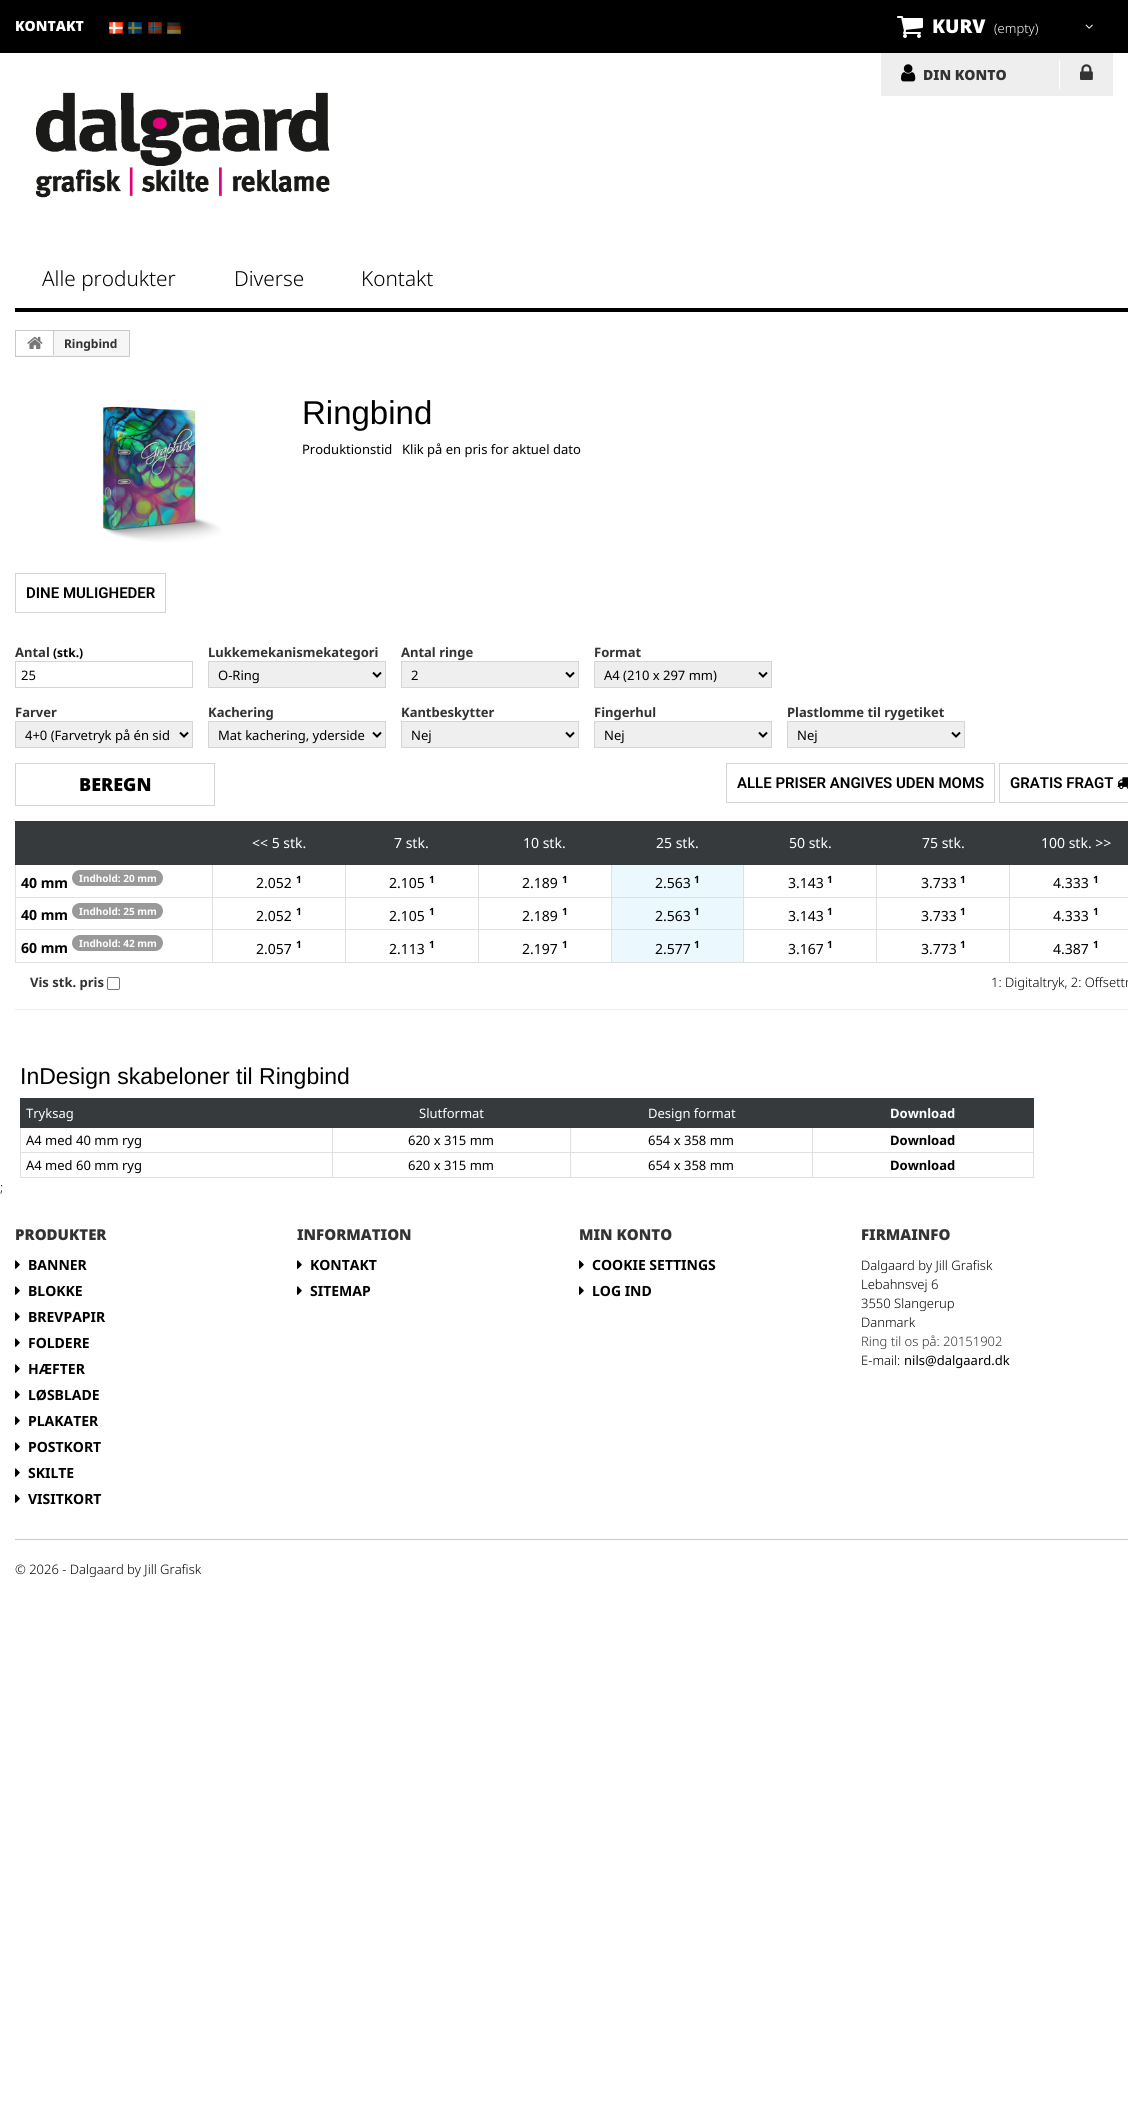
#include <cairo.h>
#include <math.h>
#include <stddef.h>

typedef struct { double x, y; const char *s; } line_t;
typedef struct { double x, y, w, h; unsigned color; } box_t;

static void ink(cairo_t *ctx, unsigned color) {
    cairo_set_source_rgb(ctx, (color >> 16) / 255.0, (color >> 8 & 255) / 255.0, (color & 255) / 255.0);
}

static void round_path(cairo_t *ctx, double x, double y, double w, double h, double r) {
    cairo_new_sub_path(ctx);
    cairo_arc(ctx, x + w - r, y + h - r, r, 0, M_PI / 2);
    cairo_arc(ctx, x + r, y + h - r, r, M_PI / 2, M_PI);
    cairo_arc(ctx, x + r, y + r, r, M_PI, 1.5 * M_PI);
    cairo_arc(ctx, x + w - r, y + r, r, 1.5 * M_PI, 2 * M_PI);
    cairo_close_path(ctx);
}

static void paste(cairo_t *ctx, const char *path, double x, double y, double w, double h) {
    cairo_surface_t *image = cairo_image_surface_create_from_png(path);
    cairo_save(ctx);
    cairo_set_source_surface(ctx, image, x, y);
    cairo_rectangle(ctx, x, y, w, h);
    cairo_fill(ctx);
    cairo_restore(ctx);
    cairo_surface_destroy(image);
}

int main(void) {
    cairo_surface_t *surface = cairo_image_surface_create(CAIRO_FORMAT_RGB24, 1128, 2114);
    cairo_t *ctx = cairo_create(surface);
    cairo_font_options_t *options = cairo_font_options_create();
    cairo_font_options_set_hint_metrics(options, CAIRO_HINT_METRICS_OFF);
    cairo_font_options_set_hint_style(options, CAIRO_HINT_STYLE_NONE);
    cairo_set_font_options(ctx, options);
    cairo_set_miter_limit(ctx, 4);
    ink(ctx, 0xFFFFFF);
    cairo_paint(ctx);
    ink(ctx, 0x000000);
    cairo_rectangle(ctx, 0, 0, 1128, 53);
    cairo_fill(ctx);
    cairo_select_font_face(ctx, "Noto Sans Black", CAIRO_FONT_SLANT_NORMAL, CAIRO_FONT_WEIGHT_NORMAL);
    cairo_set_font_size(ctx, 14);
    ink(ctx, 0xFFFFFF);
    cairo_move_to(ctx, 15, 31);
    cairo_show_text(ctx, "KONTAKT");
    paste(ctx, "media/1.png", 109, 22, 14, 12);
    paste(ctx, "media/2.png", 128, 22, 14, 12);
    paste(ctx, "media/3.png", 148, 22, 14, 12);
    paste(ctx, "media/4.png", 167, 22, 14, 12);
    paste(ctx, "media/5.png", 897, 16, 26, 22);
    cairo_set_font_size(ctx, 19);
    cairo_move_to(ctx, 932, 33);
    cairo_show_text(ctx, "KURV");
    cairo_select_font_face(ctx, "Noto Sans Light", CAIRO_FONT_SLANT_NORMAL, CAIRO_FONT_WEIGHT_NORMAL);
    cairo_set_font_size(ctx, 13);
    cairo_move_to(ctx, 994, 33);
    cairo_show_text(ctx, "(empty)");
    paste(ctx, "media/6.png", 1085, 24, 8, 5);
    ink(ctx, 0xEEEEEE);
    cairo_rectangle(ctx, 881, 53, 232, 43);
    cairo_fill(ctx);
    paste(ctx, "media/7.png", 901, 64, 15, 18);
    cairo_select_font_face(ctx, "Noto Sans Black", CAIRO_FONT_SLANT_NORMAL, CAIRO_FONT_WEIGHT_NORMAL);
    cairo_set_font_size(ctx, 14);
    ink(ctx, 0x333333);
    cairo_move_to(ctx, 923, 80);
    cairo_show_text(ctx, "DIN KONTO");
    ink(ctx, 0xFFFFFF);
    cairo_rectangle(ctx, 1059, 60, 1, 29);
    cairo_fill(ctx);
    paste(ctx, "media/8.png", 1080, 64, 13, 16);
    paste(ctx, "media/9.png", 36, 92, 294, 106);
    ink(ctx, 0x000000);
    cairo_rectangle(ctx, 15, 308, 1113, 4);
    cairo_fill(ctx);
    cairo_select_font_face(ctx, "Noto Sans Light", CAIRO_FONT_SLANT_NORMAL, CAIRO_FONT_WEIGHT_NORMAL);
    cairo_set_font_size(ctx, 20.75);
    {
        static const line_t items[] = {
            {42, 286, "Alle produkter"},
            {234, 286, "Diverse"},
            {361, 286, "Kontakt"},
        };
        for (size_t i = 0; i < sizeof items / sizeof *items; i++) {
            cairo_move_to(ctx, items[i].x, items[i].y);
            cairo_show_text(ctx, items[i].s);
        }
    }
    ink(ctx, 0xF6F6F6);
    cairo_rectangle(ctx, 15.5, 330.5, 114, 26);
    cairo_fill_preserve(ctx);
    ink(ctx, 0xCACACA);
    cairo_set_line_width(ctx, 1);
    cairo_stroke(ctx);
    ink(ctx, 0xFFFFFF);
    cairo_rectangle(ctx, 16, 331, 37, 24);
    cairo_fill(ctx);
    ink(ctx, 0xCACACA);
    cairo_rectangle(ctx, 53, 331, 1, 24);
    cairo_fill(ctx);
    paste(ctx, "media/10.png", 27, 336, 16, 13);
    cairo_select_font_face(ctx, "Noto Sans", CAIRO_FONT_SLANT_NORMAL, CAIRO_FONT_WEIGHT_BOLD);
    cairo_set_font_size(ctx, 12);
    ink(ctx, 0x333333);
    cairo_move_to(ctx, 64, 348);
    cairo_show_text(ctx, "Ringbind");
    paste(ctx, "media/11.png", 102, 406, 120, 136);
    cairo_select_font_face(ctx, "Liberation Sans", CAIRO_FONT_SLANT_NORMAL, CAIRO_FONT_WEIGHT_NORMAL);
    cairo_set_font_size(ctx, 33);
    ink(ctx, 0x000000);
    cairo_move_to(ctx, 302, 424);
    cairo_show_text(ctx, "Ringbind");
    cairo_select_font_face(ctx, "Noto Sans", CAIRO_FONT_SLANT_NORMAL, CAIRO_FONT_WEIGHT_NORMAL);
    cairo_set_font_size(ctx, 13);
    cairo_move_to(ctx, 302, 454);
    cairo_show_text(ctx, "Produktionstid");
    cairo_move_to(ctx, 402, 454);
    cairo_show_text(ctx, "Klik på en pris for aktuel dato");
    cairo_rectangle(ctx, 15.5, 573.5, 150, 39);
    ink(ctx, 0xD6D4D4);
    cairo_stroke(ctx);
    cairo_select_font_face(ctx, "Roboto SemiBold", CAIRO_FONT_SLANT_NORMAL, CAIRO_FONT_WEIGHT_NORMAL);
    cairo_set_font_size(ctx, 15);
    ink(ctx, 0x000000);
    cairo_move_to(ctx, 26, 598);
    cairo_show_text(ctx, "DINE MULIGHEDER");
    cairo_select_font_face(ctx, "Noto Sans", CAIRO_FONT_SLANT_NORMAL, CAIRO_FONT_WEIGHT_BOLD);
    cairo_set_font_size(ctx, 13);
    ink(ctx, 0x333333);
    cairo_move_to(ctx, 15, 657);
    cairo_show_text(ctx, "Antal");
    cairo_set_font_size(ctx, 12);
    ink(ctx, 0x000000);
    cairo_move_to(ctx, 53, 657);
    cairo_show_text(ctx, "(stk.)");
    cairo_rectangle(ctx, 15.5, 661.5, 177, 26);
    ink(ctx, 0xD6D4D4);
    cairo_stroke(ctx);
    cairo_select_font_face(ctx, "Noto Sans", CAIRO_FONT_SLANT_NORMAL, CAIRO_FONT_WEIGHT_NORMAL);
    cairo_set_font_size(ctx, 13);
    ink(ctx, 0x000000);
    cairo_move_to(ctx, 21, 680);
    cairo_show_text(ctx, "25");
    cairo_select_font_face(ctx, "Noto Sans", CAIRO_FONT_SLANT_NORMAL, CAIRO_FONT_WEIGHT_BOLD);
    ink(ctx, 0x333333);
    cairo_move_to(ctx, 208, 657);
    cairo_show_text(ctx, "Lukkemekanismekategori");
    ink(ctx, 0xEFEFEF);
    cairo_rectangle(ctx, 208.5, 661.5, 177, 26);
    cairo_fill_preserve(ctx);
    ink(ctx, 0xD6D4D4);
    cairo_stroke(ctx);
    cairo_new_path(ctx);
    cairo_move_to(ctx, 373, 672.5);
    cairo_line_to(ctx, 377, 676.5);
    cairo_line_to(ctx, 381, 672.5);
    ink(ctx, 0x000000);
    cairo_set_line_width(ctx, 2);
    cairo_stroke(ctx);
    cairo_select_font_face(ctx, "Noto Sans", CAIRO_FONT_SLANT_NORMAL, CAIRO_FONT_WEIGHT_NORMAL);
    cairo_move_to(ctx, 218, 680);
    cairo_show_text(ctx, "O-Ring");
    cairo_select_font_face(ctx, "Noto Sans", CAIRO_FONT_SLANT_NORMAL, CAIRO_FONT_WEIGHT_BOLD);
    ink(ctx, 0x333333);
    cairo_move_to(ctx, 401, 657);
    cairo_show_text(ctx, "Antal ringe");
    ink(ctx, 0xEFEFEF);
    cairo_rectangle(ctx, 401.5, 661.5, 177, 26);
    cairo_fill_preserve(ctx);
    ink(ctx, 0xD6D4D4);
    cairo_set_line_width(ctx, 1);
    cairo_stroke(ctx);
    cairo_new_path(ctx);
    cairo_move_to(ctx, 566, 672.5);
    cairo_line_to(ctx, 570, 676.5);
    cairo_line_to(ctx, 574, 672.5);
    ink(ctx, 0x000000);
    cairo_set_line_width(ctx, 2);
    cairo_stroke(ctx);
    cairo_select_font_face(ctx, "Noto Sans", CAIRO_FONT_SLANT_NORMAL, CAIRO_FONT_WEIGHT_NORMAL);
    cairo_move_to(ctx, 411, 680);
    cairo_show_text(ctx, "2");
    cairo_select_font_face(ctx, "Noto Sans", CAIRO_FONT_SLANT_NORMAL, CAIRO_FONT_WEIGHT_BOLD);
    ink(ctx, 0x333333);
    cairo_move_to(ctx, 594, 657);
    cairo_show_text(ctx, "Format");
    ink(ctx, 0xEEEEEE);
    cairo_rectangle(ctx, 594.5, 661.5, 177, 26);
    cairo_fill_preserve(ctx);
    ink(ctx, 0xD6D4D4);
    cairo_set_line_width(ctx, 1);
    cairo_stroke(ctx);
    cairo_new_path(ctx);
    cairo_move_to(ctx, 759, 672.5);
    cairo_line_to(ctx, 763, 676.5);
    cairo_line_to(ctx, 767, 672.5);
    ink(ctx, 0x000000);
    cairo_set_line_width(ctx, 2);
    cairo_stroke(ctx);
    cairo_select_font_face(ctx, "Noto Sans", CAIRO_FONT_SLANT_NORMAL, CAIRO_FONT_WEIGHT_NORMAL);
    cairo_move_to(ctx, 604, 680);
    cairo_show_text(ctx, "A4 (210 x 297 mm)");
    cairo_select_font_face(ctx, "Noto Sans", CAIRO_FONT_SLANT_NORMAL, CAIRO_FONT_WEIGHT_BOLD);
    ink(ctx, 0x333333);
    cairo_move_to(ctx, 15, 717);
    cairo_show_text(ctx, "Farver");
    ink(ctx, 0xEFEFEF);
    cairo_rectangle(ctx, 15.5, 721.5, 177, 26);
    cairo_fill_preserve(ctx);
    ink(ctx, 0xD6D4D4);
    cairo_set_line_width(ctx, 1);
    cairo_stroke(ctx);
    cairo_new_path(ctx);
    cairo_move_to(ctx, 180, 732.5);
    cairo_line_to(ctx, 184, 736.5);
    cairo_line_to(ctx, 188, 732.5);
    ink(ctx, 0x000000);
    cairo_set_line_width(ctx, 2);
    cairo_stroke(ctx);
    cairo_select_font_face(ctx, "Noto Sans", CAIRO_FONT_SLANT_NORMAL, CAIRO_FONT_WEIGHT_NORMAL);
    cairo_move_to(ctx, 25, 740);
    cairo_show_text(ctx, "4+0 (Farvetryk på én sid");
    cairo_select_font_face(ctx, "Noto Sans", CAIRO_FONT_SLANT_NORMAL, CAIRO_FONT_WEIGHT_BOLD);
    ink(ctx, 0x333333);
    cairo_move_to(ctx, 208, 717);
    cairo_show_text(ctx, "Kachering");
    ink(ctx, 0xEFEFEF);
    cairo_rectangle(ctx, 208.5, 721.5, 177, 26);
    cairo_fill_preserve(ctx);
    ink(ctx, 0xD6D4D4);
    cairo_set_line_width(ctx, 1);
    cairo_stroke(ctx);
    cairo_new_path(ctx);
    cairo_move_to(ctx, 373, 732.5);
    cairo_line_to(ctx, 377, 736.5);
    cairo_line_to(ctx, 381, 732.5);
    ink(ctx, 0x000000);
    cairo_set_line_width(ctx, 2);
    cairo_stroke(ctx);
    cairo_select_font_face(ctx, "Noto Sans", CAIRO_FONT_SLANT_NORMAL, CAIRO_FONT_WEIGHT_NORMAL);
    cairo_move_to(ctx, 218, 740);
    cairo_show_text(ctx, "Mat kachering, yderside");
    cairo_select_font_face(ctx, "Noto Sans", CAIRO_FONT_SLANT_NORMAL, CAIRO_FONT_WEIGHT_BOLD);
    ink(ctx, 0x333333);
    cairo_move_to(ctx, 401, 717);
    cairo_show_text(ctx, "Kantbeskytter");
    ink(ctx, 0xEFEFEF);
    cairo_rectangle(ctx, 401.5, 721.5, 177, 26);
    cairo_fill_preserve(ctx);
    ink(ctx, 0xD6D4D4);
    cairo_set_line_width(ctx, 1);
    cairo_stroke(ctx);
    cairo_new_path(ctx);
    cairo_move_to(ctx, 566, 732.5);
    cairo_line_to(ctx, 570, 736.5);
    cairo_line_to(ctx, 574, 732.5);
    ink(ctx, 0x000000);
    cairo_set_line_width(ctx, 2);
    cairo_stroke(ctx);
    cairo_select_font_face(ctx, "Noto Sans", CAIRO_FONT_SLANT_NORMAL, CAIRO_FONT_WEIGHT_NORMAL);
    cairo_move_to(ctx, 411, 740);
    cairo_show_text(ctx, "Nej");
    cairo_select_font_face(ctx, "Noto Sans", CAIRO_FONT_SLANT_NORMAL, CAIRO_FONT_WEIGHT_BOLD);
    ink(ctx, 0x333333);
    cairo_move_to(ctx, 594, 717);
    cairo_show_text(ctx, "Fingerhul");
    ink(ctx, 0xEFEFEF);
    cairo_rectangle(ctx, 594.5, 721.5, 177, 26);
    cairo_fill_preserve(ctx);
    ink(ctx, 0xD6D4D4);
    cairo_set_line_width(ctx, 1);
    cairo_stroke(ctx);
    cairo_new_path(ctx);
    cairo_move_to(ctx, 759, 732.5);
    cairo_line_to(ctx, 763, 736.5);
    cairo_line_to(ctx, 767, 732.5);
    ink(ctx, 0x000000);
    cairo_set_line_width(ctx, 2);
    cairo_stroke(ctx);
    cairo_select_font_face(ctx, "Noto Sans", CAIRO_FONT_SLANT_NORMAL, CAIRO_FONT_WEIGHT_NORMAL);
    cairo_move_to(ctx, 604, 740);
    cairo_show_text(ctx, "Nej");
    cairo_select_font_face(ctx, "Noto Sans", CAIRO_FONT_SLANT_NORMAL, CAIRO_FONT_WEIGHT_BOLD);
    ink(ctx, 0x333333);
    cairo_move_to(ctx, 787, 717);
    cairo_show_text(ctx, "Plastlomme til rygetiket");
    ink(ctx, 0xEFEFEF);
    cairo_rectangle(ctx, 787.5, 721.5, 177, 26);
    cairo_fill_preserve(ctx);
    ink(ctx, 0xD6D4D4);
    cairo_set_line_width(ctx, 1);
    cairo_stroke(ctx);
    cairo_new_path(ctx);
    cairo_move_to(ctx, 952, 732.5);
    cairo_line_to(ctx, 956, 736.5);
    cairo_line_to(ctx, 960, 732.5);
    ink(ctx, 0x000000);
    cairo_set_line_width(ctx, 2);
    cairo_stroke(ctx);
    cairo_select_font_face(ctx, "Noto Sans", CAIRO_FONT_SLANT_NORMAL, CAIRO_FONT_WEIGHT_NORMAL);
    cairo_move_to(ctx, 797, 740);
    cairo_show_text(ctx, "Nej");
    cairo_rectangle(ctx, 15.5, 763.5, 199, 42);
    ink(ctx, 0xD6D4D4);
    cairo_set_line_width(ctx, 1);
    cairo_stroke(ctx);
    cairo_select_font_face(ctx, "Noto Sans Black", CAIRO_FONT_SLANT_NORMAL, CAIRO_FONT_WEIGHT_NORMAL);
    cairo_set_font_size(ctx, 18);
    ink(ctx, 0x000000);
    cairo_move_to(ctx, 79, 791);
    cairo_show_text(ctx, "BEREGN");
    cairo_rectangle(ctx, 726.5, 763.5, 268, 39);
    ink(ctx, 0xD6D4D4);
    cairo_stroke(ctx);
    cairo_select_font_face(ctx, "Roboto SemiBold", CAIRO_FONT_SLANT_NORMAL, CAIRO_FONT_WEIGHT_NORMAL);
    cairo_set_font_size(ctx, 15);
    ink(ctx, 0x000000);
    cairo_move_to(ctx, 737, 788);
    cairo_show_text(ctx, "ALLE PRISER ANGIVES UDEN MOMS");
    cairo_rectangle(ctx, 999.5, 763.5, 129, 39);
    ink(ctx, 0xD6D4D4);
    cairo_stroke(ctx);
    ink(ctx, 0x000000);
    cairo_move_to(ctx, 1010, 788);
    cairo_show_text(ctx, "GRATIS FRAGT");
    paste(ctx, "media/12.png", 1117, 777, 11, 13);
    {
        static const box_t items[] = {
            {16, 822, 1112, 42, 0x373A3C},
            {15, 821, 1113, 1, 0x373A3C},
            {1009, 897, 119, 1, 0xE0E0E0},
            {1009, 929, 119, 1, 0xE0E0E0},
            {1009, 962, 119, 1, 0xE0E0E0},
            {1009, 929, 1, 34, 0xE0E0E0},
            {876, 929, 134, 1, 0xE0E0E0},
            {1009, 897, 1, 33, 0xE0E0E0},
            {876, 897, 134, 1, 0xE0E0E0},
            {876, 962, 134, 1, 0xE0E0E0},
            {876, 929, 1, 34, 0xE0E0E0},
            {743, 929, 134, 1, 0xE0E0E0},
            {876, 897, 1, 33, 0xE0E0E0},
            {743, 897, 134, 1, 0xE0E0E0},
            {743, 962, 134, 1, 0xE0E0E0},
            {743, 929, 1, 34, 0xE0E0E0},
            {611, 929, 133, 1, 0xE0E0E0},
            {743, 897, 1, 33, 0xE0E0E0},
            {611, 897, 133, 1, 0xE0E0E0},
            {611, 962, 133, 1, 0xE0E0E0},
            {611, 929, 1, 34, 0xE0E0E0},
            {478, 929, 134, 1, 0xE0E0E0},
            {611, 897, 1, 33, 0xE0E0E0},
            {478, 897, 134, 1, 0xE0E0E0},
            {478, 962, 134, 1, 0xE0E0E0},
            {478, 929, 1, 34, 0xE0E0E0},
            {345, 929, 134, 1, 0xE0E0E0},
            {478, 897, 1, 33, 0xE0E0E0},
            {345, 897, 134, 1, 0xE0E0E0},
            {345, 962, 134, 1, 0xE0E0E0},
            {345, 929, 1, 34, 0xE0E0E0},
            {212, 929, 134, 1, 0xE0E0E0},
            {345, 897, 1, 33, 0xE0E0E0},
            {212, 897, 134, 1, 0xE0E0E0},
            {212, 962, 134, 1, 0xE0E0E0},
            {212, 929, 1, 34, 0xE0E0E0},
            {15, 929, 198, 1, 0xE0E0E0},
            {212, 897, 1, 33, 0xE0E0E0},
            {15, 897, 198, 1, 0xE0E0E0},
            {212, 864, 1, 34, 0xE0E0E0},
            {345, 864, 1, 34, 0xE0E0E0},
            {478, 864, 1, 34, 0xE0E0E0},
            {611, 864, 1, 34, 0xE0E0E0},
            {743, 864, 1, 34, 0xE0E0E0},
            {876, 864, 1, 34, 0xE0E0E0},
            {1009, 864, 1, 34, 0xE0E0E0},
            {15, 962, 198, 1, 0xE0E0E0},
            {15, 929, 1, 34, 0xE0E0E0},
            {15, 864, 1, 66, 0xE0E0E0},
            {15, 864, 1113, 1, 0x373A3C},
            {15, 821, 1, 44, 0x373A3C},
        };
        for (size_t i = 0; i < sizeof items / sizeof *items; i++) {
            ink(ctx, items[i].color);
            cairo_rectangle(ctx, items[i].x, items[i].y, items[i].w, items[i].h);
            cairo_fill(ctx);
        }
    }
    cairo_select_font_face(ctx, "Noto Sans", CAIRO_FONT_SLANT_NORMAL, CAIRO_FONT_WEIGHT_NORMAL);
    cairo_set_font_size(ctx, 14);
    ink(ctx, 0xFFFFFF);
    {
        static const line_t items[] = {
            {252, 848, "<< 5 stk."},
            {394, 848, "7 stk."},
            {523, 848, "10 stk."},
            {656, 848, "25 stk."},
            {789, 848, "50 stk."},
            {922, 848, "75 stk."},
            {1041, 848, "100 stk. >>"},
        };
        for (size_t i = 0; i < sizeof items / sizeof *items; i++) {
            cairo_move_to(ctx, items[i].x, items[i].y);
            cairo_show_text(ctx, items[i].s);
        }
    }
    cairo_select_font_face(ctx, "Noto Sans", CAIRO_FONT_SLANT_NORMAL, CAIRO_FONT_WEIGHT_BOLD);
    ink(ctx, 0x000000);
    cairo_move_to(ctx, 21, 888);
    cairo_show_text(ctx, "40 mm");
    ink(ctx, 0x999999);
    round_path(ctx, 72, 870, 91, 16, 8);
    cairo_fill(ctx);
    cairo_set_font_size(ctx, 10);
    ink(ctx, 0xFFFFFF);
    cairo_move_to(ctx, 79, 882);
    cairo_show_text(ctx, "Indhold: 20 mm");
    cairo_select_font_face(ctx, "Noto Sans", CAIRO_FONT_SLANT_NORMAL, CAIRO_FONT_WEIGHT_NORMAL);
    cairo_set_font_size(ctx, 14);
    ink(ctx, 0x000000);
    cairo_move_to(ctx, 256, 888);
    cairo_show_text(ctx, "2.052");
    cairo_select_font_face(ctx, "Noto Sans", CAIRO_FONT_SLANT_NORMAL, CAIRO_FONT_WEIGHT_BOLD);
    cairo_set_font_size(ctx, 10);
    cairo_move_to(ctx, 296, 883);
    cairo_show_text(ctx, "1");
    cairo_select_font_face(ctx, "Noto Sans", CAIRO_FONT_SLANT_NORMAL, CAIRO_FONT_WEIGHT_NORMAL);
    cairo_set_font_size(ctx, 14);
    cairo_move_to(ctx, 389, 888);
    cairo_show_text(ctx, "2.105");
    cairo_select_font_face(ctx, "Noto Sans", CAIRO_FONT_SLANT_NORMAL, CAIRO_FONT_WEIGHT_BOLD);
    cairo_set_font_size(ctx, 10);
    cairo_move_to(ctx, 429, 883);
    cairo_show_text(ctx, "1");
    cairo_select_font_face(ctx, "Noto Sans", CAIRO_FONT_SLANT_NORMAL, CAIRO_FONT_WEIGHT_NORMAL);
    cairo_set_font_size(ctx, 14);
    cairo_move_to(ctx, 522, 888);
    cairo_show_text(ctx, "2.189");
    cairo_select_font_face(ctx, "Noto Sans", CAIRO_FONT_SLANT_NORMAL, CAIRO_FONT_WEIGHT_BOLD);
    cairo_set_font_size(ctx, 10);
    cairo_move_to(ctx, 562, 883);
    cairo_show_text(ctx, "1");
    ink(ctx, 0xEBF9FF);
    cairo_rectangle(ctx, 612, 865, 131, 32);
    cairo_fill(ctx);
    cairo_select_font_face(ctx, "Noto Sans", CAIRO_FONT_SLANT_NORMAL, CAIRO_FONT_WEIGHT_NORMAL);
    cairo_set_font_size(ctx, 14);
    ink(ctx, 0x000000);
    cairo_move_to(ctx, 655, 888);
    cairo_show_text(ctx, "2.563");
    cairo_select_font_face(ctx, "Noto Sans", CAIRO_FONT_SLANT_NORMAL, CAIRO_FONT_WEIGHT_BOLD);
    cairo_set_font_size(ctx, 10);
    cairo_move_to(ctx, 694, 883);
    cairo_show_text(ctx, "1");
    cairo_select_font_face(ctx, "Noto Sans", CAIRO_FONT_SLANT_NORMAL, CAIRO_FONT_WEIGHT_NORMAL);
    cairo_set_font_size(ctx, 14);
    cairo_move_to(ctx, 788, 888);
    cairo_show_text(ctx, "3.143");
    cairo_select_font_face(ctx, "Noto Sans", CAIRO_FONT_SLANT_NORMAL, CAIRO_FONT_WEIGHT_BOLD);
    cairo_set_font_size(ctx, 10);
    cairo_move_to(ctx, 827, 883);
    cairo_show_text(ctx, "1");
    cairo_select_font_face(ctx, "Noto Sans", CAIRO_FONT_SLANT_NORMAL, CAIRO_FONT_WEIGHT_NORMAL);
    cairo_set_font_size(ctx, 14);
    cairo_move_to(ctx, 921, 888);
    cairo_show_text(ctx, "3.733");
    cairo_select_font_face(ctx, "Noto Sans", CAIRO_FONT_SLANT_NORMAL, CAIRO_FONT_WEIGHT_BOLD);
    cairo_set_font_size(ctx, 10);
    cairo_move_to(ctx, 960, 883);
    cairo_show_text(ctx, "1");
    cairo_select_font_face(ctx, "Noto Sans", CAIRO_FONT_SLANT_NORMAL, CAIRO_FONT_WEIGHT_NORMAL);
    cairo_set_font_size(ctx, 14);
    cairo_move_to(ctx, 1053, 888);
    cairo_show_text(ctx, "4.333");
    cairo_select_font_face(ctx, "Noto Sans", CAIRO_FONT_SLANT_NORMAL, CAIRO_FONT_WEIGHT_BOLD);
    cairo_set_font_size(ctx, 10);
    cairo_move_to(ctx, 1093, 883);
    cairo_show_text(ctx, "1");
    cairo_set_font_size(ctx, 14);
    cairo_move_to(ctx, 21, 920);
    cairo_show_text(ctx, "40 mm");
    ink(ctx, 0x999999);
    round_path(ctx, 72, 903, 91, 16, 8);
    cairo_fill(ctx);
    cairo_set_font_size(ctx, 10);
    ink(ctx, 0xFFFFFF);
    cairo_move_to(ctx, 79, 915);
    cairo_show_text(ctx, "Indhold: 25 mm");
    cairo_select_font_face(ctx, "Noto Sans", CAIRO_FONT_SLANT_NORMAL, CAIRO_FONT_WEIGHT_NORMAL);
    cairo_set_font_size(ctx, 14);
    ink(ctx, 0x000000);
    cairo_move_to(ctx, 256, 921);
    cairo_show_text(ctx, "2.052");
    cairo_select_font_face(ctx, "Noto Sans", CAIRO_FONT_SLANT_NORMAL, CAIRO_FONT_WEIGHT_BOLD);
    cairo_set_font_size(ctx, 10);
    cairo_move_to(ctx, 296, 915);
    cairo_show_text(ctx, "1");
    cairo_select_font_face(ctx, "Noto Sans", CAIRO_FONT_SLANT_NORMAL, CAIRO_FONT_WEIGHT_NORMAL);
    cairo_set_font_size(ctx, 14);
    cairo_move_to(ctx, 389, 921);
    cairo_show_text(ctx, "2.105");
    cairo_select_font_face(ctx, "Noto Sans", CAIRO_FONT_SLANT_NORMAL, CAIRO_FONT_WEIGHT_BOLD);
    cairo_set_font_size(ctx, 10);
    cairo_move_to(ctx, 429, 915);
    cairo_show_text(ctx, "1");
    cairo_select_font_face(ctx, "Noto Sans", CAIRO_FONT_SLANT_NORMAL, CAIRO_FONT_WEIGHT_NORMAL);
    cairo_set_font_size(ctx, 14);
    cairo_move_to(ctx, 522, 921);
    cairo_show_text(ctx, "2.189");
    cairo_select_font_face(ctx, "Noto Sans", CAIRO_FONT_SLANT_NORMAL, CAIRO_FONT_WEIGHT_BOLD);
    cairo_set_font_size(ctx, 10);
    cairo_move_to(ctx, 562, 915);
    cairo_show_text(ctx, "1");
    ink(ctx, 0xEBF9FF);
    cairo_rectangle(ctx, 612, 898, 131, 31);
    cairo_fill(ctx);
    cairo_select_font_face(ctx, "Noto Sans", CAIRO_FONT_SLANT_NORMAL, CAIRO_FONT_WEIGHT_NORMAL);
    cairo_set_font_size(ctx, 14);
    ink(ctx, 0x000000);
    cairo_move_to(ctx, 655, 921);
    cairo_show_text(ctx, "2.563");
    cairo_select_font_face(ctx, "Noto Sans", CAIRO_FONT_SLANT_NORMAL, CAIRO_FONT_WEIGHT_BOLD);
    cairo_set_font_size(ctx, 10);
    cairo_move_to(ctx, 694, 915);
    cairo_show_text(ctx, "1");
    cairo_select_font_face(ctx, "Noto Sans", CAIRO_FONT_SLANT_NORMAL, CAIRO_FONT_WEIGHT_NORMAL);
    cairo_set_font_size(ctx, 14);
    cairo_move_to(ctx, 788, 921);
    cairo_show_text(ctx, "3.143");
    cairo_select_font_face(ctx, "Noto Sans", CAIRO_FONT_SLANT_NORMAL, CAIRO_FONT_WEIGHT_BOLD);
    cairo_set_font_size(ctx, 10);
    cairo_move_to(ctx, 827, 915);
    cairo_show_text(ctx, "1");
    cairo_select_font_face(ctx, "Noto Sans", CAIRO_FONT_SLANT_NORMAL, CAIRO_FONT_WEIGHT_NORMAL);
    cairo_set_font_size(ctx, 14);
    cairo_move_to(ctx, 921, 921);
    cairo_show_text(ctx, "3.733");
    cairo_select_font_face(ctx, "Noto Sans", CAIRO_FONT_SLANT_NORMAL, CAIRO_FONT_WEIGHT_BOLD);
    cairo_set_font_size(ctx, 10);
    cairo_move_to(ctx, 960, 915);
    cairo_show_text(ctx, "1");
    cairo_select_font_face(ctx, "Noto Sans", CAIRO_FONT_SLANT_NORMAL, CAIRO_FONT_WEIGHT_NORMAL);
    cairo_set_font_size(ctx, 14);
    cairo_move_to(ctx, 1053, 921);
    cairo_show_text(ctx, "4.333");
    cairo_select_font_face(ctx, "Noto Sans", CAIRO_FONT_SLANT_NORMAL, CAIRO_FONT_WEIGHT_BOLD);
    cairo_set_font_size(ctx, 10);
    cairo_move_to(ctx, 1093, 915);
    cairo_show_text(ctx, "1");
    cairo_set_font_size(ctx, 14);
    cairo_move_to(ctx, 21, 953);
    cairo_show_text(ctx, "60 mm");
    ink(ctx, 0x999999);
    round_path(ctx, 72, 935, 91, 16, 8);
    cairo_fill(ctx);
    cairo_set_font_size(ctx, 10);
    ink(ctx, 0xFFFFFF);
    cairo_move_to(ctx, 79, 947);
    cairo_show_text(ctx, "Indhold: 42 mm");
    cairo_select_font_face(ctx, "Noto Sans", CAIRO_FONT_SLANT_NORMAL, CAIRO_FONT_WEIGHT_NORMAL);
    cairo_set_font_size(ctx, 14);
    ink(ctx, 0x000000);
    cairo_move_to(ctx, 256, 954);
    cairo_show_text(ctx, "2.057");
    cairo_select_font_face(ctx, "Noto Sans", CAIRO_FONT_SLANT_NORMAL, CAIRO_FONT_WEIGHT_BOLD);
    cairo_set_font_size(ctx, 10);
    cairo_move_to(ctx, 296, 948);
    cairo_show_text(ctx, "1");
    cairo_select_font_face(ctx, "Noto Sans", CAIRO_FONT_SLANT_NORMAL, CAIRO_FONT_WEIGHT_NORMAL);
    cairo_set_font_size(ctx, 14);
    cairo_move_to(ctx, 389, 954);
    cairo_show_text(ctx, "2.113");
    cairo_select_font_face(ctx, "Noto Sans", CAIRO_FONT_SLANT_NORMAL, CAIRO_FONT_WEIGHT_BOLD);
    cairo_set_font_size(ctx, 10);
    cairo_move_to(ctx, 429, 948);
    cairo_show_text(ctx, "1");
    cairo_select_font_face(ctx, "Noto Sans", CAIRO_FONT_SLANT_NORMAL, CAIRO_FONT_WEIGHT_NORMAL);
    cairo_set_font_size(ctx, 14);
    cairo_move_to(ctx, 522, 954);
    cairo_show_text(ctx, "2.197");
    cairo_select_font_face(ctx, "Noto Sans", CAIRO_FONT_SLANT_NORMAL, CAIRO_FONT_WEIGHT_BOLD);
    cairo_set_font_size(ctx, 10);
    cairo_move_to(ctx, 562, 948);
    cairo_show_text(ctx, "1");
    ink(ctx, 0xEBF9FF);
    cairo_rectangle(ctx, 612, 930, 131, 32);
    cairo_fill(ctx);
    cairo_select_font_face(ctx, "Noto Sans", CAIRO_FONT_SLANT_NORMAL, CAIRO_FONT_WEIGHT_NORMAL);
    cairo_set_font_size(ctx, 14);
    ink(ctx, 0x000000);
    cairo_move_to(ctx, 655, 954);
    cairo_show_text(ctx, "2.577");
    cairo_select_font_face(ctx, "Noto Sans", CAIRO_FONT_SLANT_NORMAL, CAIRO_FONT_WEIGHT_BOLD);
    cairo_set_font_size(ctx, 10);
    cairo_move_to(ctx, 694, 948);
    cairo_show_text(ctx, "1");
    cairo_select_font_face(ctx, "Noto Sans", CAIRO_FONT_SLANT_NORMAL, CAIRO_FONT_WEIGHT_NORMAL);
    cairo_set_font_size(ctx, 14);
    cairo_move_to(ctx, 788, 954);
    cairo_show_text(ctx, "3.167");
    cairo_select_font_face(ctx, "Noto Sans", CAIRO_FONT_SLANT_NORMAL, CAIRO_FONT_WEIGHT_BOLD);
    cairo_set_font_size(ctx, 10);
    cairo_move_to(ctx, 827, 948);
    cairo_show_text(ctx, "1");
    cairo_select_font_face(ctx, "Noto Sans", CAIRO_FONT_SLANT_NORMAL, CAIRO_FONT_WEIGHT_NORMAL);
    cairo_set_font_size(ctx, 14);
    cairo_move_to(ctx, 921, 954);
    cairo_show_text(ctx, "3.773");
    cairo_select_font_face(ctx, "Noto Sans", CAIRO_FONT_SLANT_NORMAL, CAIRO_FONT_WEIGHT_BOLD);
    cairo_set_font_size(ctx, 10);
    cairo_move_to(ctx, 960, 948);
    cairo_show_text(ctx, "1");
    cairo_select_font_face(ctx, "Noto Sans", CAIRO_FONT_SLANT_NORMAL, CAIRO_FONT_WEIGHT_NORMAL);
    cairo_set_font_size(ctx, 14);
    cairo_move_to(ctx, 1053, 954);
    cairo_show_text(ctx, "4.387");
    cairo_select_font_face(ctx, "Noto Sans", CAIRO_FONT_SLANT_NORMAL, CAIRO_FONT_WEIGHT_BOLD);
    cairo_set_font_size(ctx, 10);
    cairo_move_to(ctx, 1093, 948);
    cairo_show_text(ctx, "1");
    cairo_set_font_size(ctx, 13);
    ink(ctx, 0x333333);
    cairo_move_to(ctx, 30, 987);
    cairo_show_text(ctx, "Vis stk. pris");
    round_path(ctx, 107.5, 977.5, 12, 12, 1.5);
    ink(ctx, 0x767676);
    cairo_stroke(ctx);
    cairo_select_font_face(ctx, "Noto Sans Light", CAIRO_FONT_SLANT_NORMAL, CAIRO_FONT_WEIGHT_NORMAL);
    ink(ctx, 0x000000);
    cairo_move_to(ctx, 991, 987);
    cairo_show_text(ctx, "1: Digitaltryk, 2: Offsettr");
    ink(ctx, 0xEEEEEE);
    cairo_rectangle(ctx, 15, 1009, 1113, 1);
    cairo_fill(ctx);
    cairo_select_font_face(ctx, "Liberation Sans", CAIRO_FONT_SLANT_NORMAL, CAIRO_FONT_WEIGHT_NORMAL);
    cairo_set_font_size(ctx, 23);
    ink(ctx, 0x000000);
    cairo_move_to(ctx, 20, 1084);
    cairo_show_text(ctx, "InDesign skabeloner til Ringbind");
    {
        static const box_t items[] = {
            {21, 1099, 1012, 28, 0x373A3C},
            {20, 1098, 1014, 1, 0x373A3C},
            {812, 1152, 222, 1, 0xE0E0E0},
            {1033, 1127, 1, 51, 0xE0E0E0},
            {1033, 1098, 1, 30, 0x373A3C},
            {812, 1177, 222, 1, 0xE0E0E0},
            {812, 1152, 1, 26, 0xE0E0E0},
            {570, 1152, 243, 1, 0xE0E0E0},
            {570, 1177, 243, 1, 0xE0E0E0},
            {570, 1152, 1, 26, 0xE0E0E0},
            {332, 1152, 239, 1, 0xE0E0E0},
            {332, 1177, 239, 1, 0xE0E0E0},
            {332, 1152, 1, 26, 0xE0E0E0},
            {20, 1152, 313, 1, 0xE0E0E0},
            {332, 1127, 1, 26, 0xE0E0E0},
            {570, 1127, 1, 26, 0xE0E0E0},
            {812, 1127, 1, 26, 0xE0E0E0},
            {20, 1177, 313, 1, 0xE0E0E0},
            {20, 1127, 1, 51, 0xE0E0E0},
            {20, 1127, 1014, 1, 0x373A3C},
            {20, 1098, 1, 30, 0x373A3C},
        };
        for (size_t i = 0; i < sizeof items / sizeof *items; i++) {
            ink(ctx, items[i].color);
            cairo_rectangle(ctx, items[i].x, items[i].y, items[i].w, items[i].h);
            cairo_fill(ctx);
        }
    }
    cairo_select_font_face(ctx, "Noto Sans", CAIRO_FONT_SLANT_NORMAL, CAIRO_FONT_WEIGHT_NORMAL);
    cairo_set_font_size(ctx, 13);
    ink(ctx, 0xFFFFFF);
    {
        static const line_t items[] = {
            {26, 1118, "Tryksag"},
            {419, 1118, "Slutformat"},
            {648, 1118, "Design format"},
        };
        for (size_t i = 0; i < sizeof items / sizeof *items; i++) {
            cairo_move_to(ctx, items[i].x, items[i].y);
            cairo_show_text(ctx, items[i].s);
        }
    }
    cairo_select_font_face(ctx, "Noto Sans", CAIRO_FONT_SLANT_NORMAL, CAIRO_FONT_WEIGHT_BOLD);
    cairo_move_to(ctx, 890, 1118);
    cairo_show_text(ctx, "Download");
    cairo_select_font_face(ctx, "Noto Sans", CAIRO_FONT_SLANT_NORMAL, CAIRO_FONT_WEIGHT_NORMAL);
    ink(ctx, 0x000000);
    {
        static const line_t items[] = {
            {26, 1145, "A4 med 40 mm ryg"},
            {408, 1145, "620 x 315 mm"},
            {648, 1145, "654 x 358 mm"},
        };
        for (size_t i = 0; i < sizeof items / sizeof *items; i++) {
            cairo_move_to(ctx, items[i].x, items[i].y);
            cairo_show_text(ctx, items[i].s);
        }
    }
    cairo_select_font_face(ctx, "Noto Sans", CAIRO_FONT_SLANT_NORMAL, CAIRO_FONT_WEIGHT_BOLD);
    cairo_move_to(ctx, 890, 1145);
    cairo_show_text(ctx, "Download");
    cairo_select_font_face(ctx, "Noto Sans", CAIRO_FONT_SLANT_NORMAL, CAIRO_FONT_WEIGHT_NORMAL);
    {
        static const line_t items[] = {
            {26, 1170, "A4 med 60 mm ryg"},
            {408, 1170, "620 x 315 mm"},
            {648, 1170, "654 x 358 mm"},
        };
        for (size_t i = 0; i < sizeof items / sizeof *items; i++) {
            cairo_move_to(ctx, items[i].x, items[i].y);
            cairo_show_text(ctx, items[i].s);
        }
    }
    cairo_select_font_face(ctx, "Noto Sans", CAIRO_FONT_SLANT_NORMAL, CAIRO_FONT_WEIGHT_BOLD);
    cairo_move_to(ctx, 890, 1170);
    cairo_show_text(ctx, "Download");
    cairo_select_font_face(ctx, "Noto Sans Light", CAIRO_FONT_SLANT_NORMAL, CAIRO_FONT_WEIGHT_NORMAL);
    cairo_move_to(ctx, 0, 1192);
    cairo_show_text(ctx, ";");
    cairo_select_font_face(ctx, "Noto Sans Black", CAIRO_FONT_SLANT_NORMAL, CAIRO_FONT_WEIGHT_NORMAL);
    cairo_set_font_size(ctx, 15);
    ink(ctx, 0x333333);
    cairo_move_to(ctx, 15, 1240);
    cairo_show_text(ctx, "PRODUKTER");
    paste(ctx, "media/13.png", 15, 1260, 5, 9);
    cairo_select_font_face(ctx, "Noto Sans", CAIRO_FONT_SLANT_NORMAL, CAIRO_FONT_WEIGHT_BOLD);
    cairo_set_font_size(ctx, 14);
    ink(ctx, 0x000000);
    cairo_move_to(ctx, 28, 1270);
    cairo_show_text(ctx, "BANNER");
    paste(ctx, "media/13.png", 15, 1286, 5, 9);
    cairo_move_to(ctx, 28, 1296);
    cairo_show_text(ctx, "BLOKKE");
    paste(ctx, "media/13.png", 15, 1312, 5, 9);
    cairo_move_to(ctx, 28, 1322);
    cairo_show_text(ctx, "BREVPAPIR");
    paste(ctx, "media/13.png", 15, 1338, 5, 9);
    cairo_move_to(ctx, 28, 1348);
    cairo_show_text(ctx, "FOLDERE");
    paste(ctx, "media/13.png", 15, 1364, 5, 9);
    cairo_move_to(ctx, 28, 1374);
    cairo_show_text(ctx, "HÆFTER");
    paste(ctx, "media/13.png", 15, 1390, 5, 9);
    cairo_move_to(ctx, 28, 1400);
    cairo_show_text(ctx, "LØSBLADE");
    paste(ctx, "media/13.png", 15, 1416, 5, 9);
    cairo_move_to(ctx, 28, 1426);
    cairo_show_text(ctx, "PLAKATER");
    paste(ctx, "media/13.png", 15, 1442, 5, 9);
    cairo_move_to(ctx, 28, 1452);
    cairo_show_text(ctx, "POSTKORT");
    paste(ctx, "media/13.png", 15, 1468, 5, 9);
    cairo_move_to(ctx, 28, 1478);
    cairo_show_text(ctx, "SKILTE");
    paste(ctx, "media/13.png", 15, 1494, 5, 9);
    cairo_move_to(ctx, 28, 1504);
    cairo_show_text(ctx, "VISITKORT");
    cairo_select_font_face(ctx, "Noto Sans Black", CAIRO_FONT_SLANT_NORMAL, CAIRO_FONT_WEIGHT_NORMAL);
    cairo_set_font_size(ctx, 15);
    ink(ctx, 0x333333);
    cairo_move_to(ctx, 297, 1240);
    cairo_show_text(ctx, "INFORMATION");
    paste(ctx, "media/13.png", 297, 1260, 5, 9);
    cairo_select_font_face(ctx, "Noto Sans", CAIRO_FONT_SLANT_NORMAL, CAIRO_FONT_WEIGHT_BOLD);
    cairo_set_font_size(ctx, 14);
    ink(ctx, 0x000000);
    cairo_move_to(ctx, 310, 1270);
    cairo_show_text(ctx, "KONTAKT");
    paste(ctx, "media/13.png", 297, 1286, 5, 9);
    cairo_move_to(ctx, 310, 1296);
    cairo_show_text(ctx, "SITEMAP");
    cairo_select_font_face(ctx, "Noto Sans Black", CAIRO_FONT_SLANT_NORMAL, CAIRO_FONT_WEIGHT_NORMAL);
    cairo_set_font_size(ctx, 15);
    ink(ctx, 0x333333);
    cairo_move_to(ctx, 579, 1240);
    cairo_show_text(ctx, "MIN KONTO");
    paste(ctx, "media/13.png", 579, 1260, 5, 9);
    cairo_select_font_face(ctx, "Noto Sans", CAIRO_FONT_SLANT_NORMAL, CAIRO_FONT_WEIGHT_BOLD);
    cairo_set_font_size(ctx, 14);
    ink(ctx, 0x000000);
    cairo_move_to(ctx, 592, 1270);
    cairo_show_text(ctx, "COOKIE SETTINGS");
    paste(ctx, "media/13.png", 579, 1286, 5, 9);
    cairo_move_to(ctx, 592, 1296);
    cairo_show_text(ctx, "LOG IND");
    cairo_select_font_face(ctx, "Noto Sans Black", CAIRO_FONT_SLANT_NORMAL, CAIRO_FONT_WEIGHT_NORMAL);
    cairo_set_font_size(ctx, 15);
    ink(ctx, 0x333333);
    cairo_move_to(ctx, 861, 1240);
    cairo_show_text(ctx, "FIRMAINFO");
    cairo_select_font_face(ctx, "Noto Sans Light", CAIRO_FONT_SLANT_NORMAL, CAIRO_FONT_WEIGHT_NORMAL);
    cairo_set_font_size(ctx, 13);
    ink(ctx, 0x000000);
    {
        static const line_t items[] = {
            {861, 1270, "Dalgaard by Jill Grafisk"},
            {861, 1289, "Lebahnsvej 6"},
            {861, 1308, "3550 Slangerup"},
            {861, 1327, "Danmark"},
        };
        for (size_t i = 0; i < sizeof items / sizeof *items; i++) {
            cairo_move_to(ctx, items[i].x, items[i].y);
            cairo_show_text(ctx, items[i].s);
        }
    }
    ink(ctx, 0x333333);
    cairo_move_to(ctx, 861, 1346);
    cairo_show_text(ctx, "Ring til os på: 20151902");
    ink(ctx, 0x000000);
    cairo_move_to(ctx, 861, 1365);
    cairo_show_text(ctx, "E-mail:");
    cairo_select_font_face(ctx, "Noto Sans", CAIRO_FONT_SLANT_NORMAL, CAIRO_FONT_WEIGHT_NORMAL);
    cairo_move_to(ctx, 904, 1365);
    cairo_show_text(ctx, "nils@dalgaard.dk");
    ink(ctx, 0xCACACA);
    cairo_rectangle(ctx, 15, 1539, 1113, 1);
    cairo_fill(ctx);
    cairo_select_font_face(ctx, "Noto Sans Light", CAIRO_FONT_SLANT_NORMAL, CAIRO_FONT_WEIGHT_NORMAL);
    ink(ctx, 0x000000);
    cairo_move_to(ctx, 15, 1574);
    cairo_show_text(ctx, "© 2026 - Dalgaard by Jill Grafisk");
    cairo_surface_write_to_png(surface, "image.png");
    cairo_font_options_destroy(options);
    cairo_destroy(ctx);
    cairo_surface_destroy(surface);
    return 0;
}
